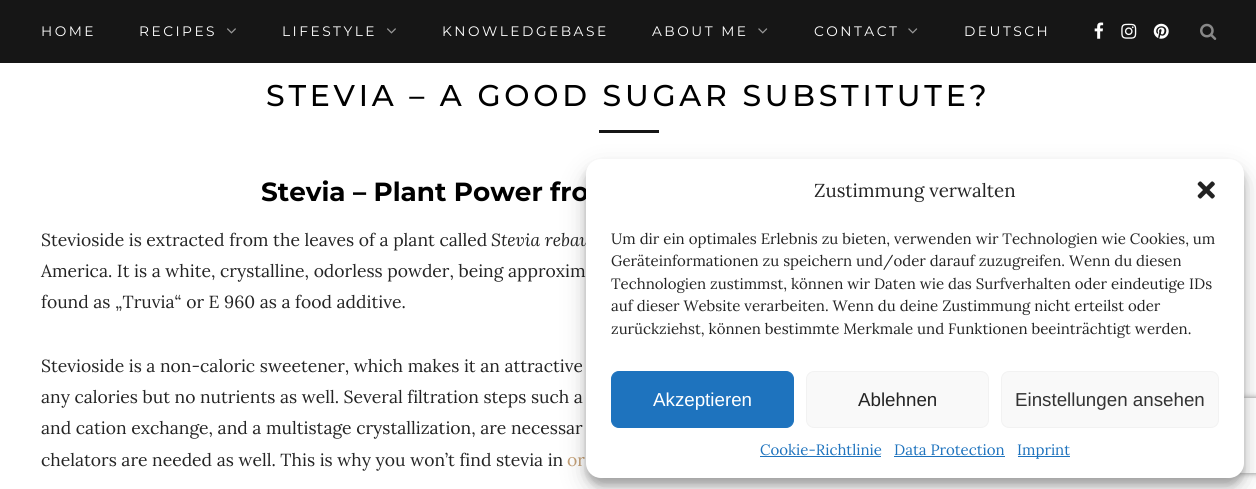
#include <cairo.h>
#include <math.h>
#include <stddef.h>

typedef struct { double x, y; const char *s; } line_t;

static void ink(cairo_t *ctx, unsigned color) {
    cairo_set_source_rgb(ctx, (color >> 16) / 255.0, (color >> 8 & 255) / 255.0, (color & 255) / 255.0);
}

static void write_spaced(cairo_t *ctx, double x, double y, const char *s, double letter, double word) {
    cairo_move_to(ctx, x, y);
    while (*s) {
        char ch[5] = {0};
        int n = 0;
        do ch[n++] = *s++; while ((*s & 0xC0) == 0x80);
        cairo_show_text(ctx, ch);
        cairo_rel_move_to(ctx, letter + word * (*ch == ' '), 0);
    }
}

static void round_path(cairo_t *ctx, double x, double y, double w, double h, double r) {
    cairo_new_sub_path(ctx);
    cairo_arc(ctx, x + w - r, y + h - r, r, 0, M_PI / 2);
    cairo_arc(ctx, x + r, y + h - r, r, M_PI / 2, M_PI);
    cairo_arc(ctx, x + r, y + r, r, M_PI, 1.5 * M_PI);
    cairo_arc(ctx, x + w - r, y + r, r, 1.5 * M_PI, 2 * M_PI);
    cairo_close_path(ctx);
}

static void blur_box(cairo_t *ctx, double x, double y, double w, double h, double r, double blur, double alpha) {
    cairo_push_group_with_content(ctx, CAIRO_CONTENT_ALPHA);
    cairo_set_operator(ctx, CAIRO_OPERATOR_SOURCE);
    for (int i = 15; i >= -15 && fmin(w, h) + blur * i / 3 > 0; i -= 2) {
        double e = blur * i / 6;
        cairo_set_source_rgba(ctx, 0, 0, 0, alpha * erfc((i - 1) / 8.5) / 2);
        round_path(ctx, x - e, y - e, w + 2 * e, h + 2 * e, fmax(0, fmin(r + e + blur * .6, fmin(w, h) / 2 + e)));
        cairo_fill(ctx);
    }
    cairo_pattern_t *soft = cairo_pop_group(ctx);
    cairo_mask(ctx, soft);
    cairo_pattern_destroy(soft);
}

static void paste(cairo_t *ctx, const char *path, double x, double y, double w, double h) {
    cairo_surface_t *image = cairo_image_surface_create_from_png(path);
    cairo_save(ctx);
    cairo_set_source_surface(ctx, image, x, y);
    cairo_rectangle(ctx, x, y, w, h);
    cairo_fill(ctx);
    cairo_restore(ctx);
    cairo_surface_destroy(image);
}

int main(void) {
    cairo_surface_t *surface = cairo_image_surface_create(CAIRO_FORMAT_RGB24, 1256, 489);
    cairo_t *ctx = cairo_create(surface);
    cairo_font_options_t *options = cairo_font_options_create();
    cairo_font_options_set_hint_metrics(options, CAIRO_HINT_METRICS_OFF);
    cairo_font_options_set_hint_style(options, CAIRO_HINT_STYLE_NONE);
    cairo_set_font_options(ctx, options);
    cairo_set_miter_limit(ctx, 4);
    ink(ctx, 0xFFFFFF);
    cairo_paint(ctx);
    ink(ctx, 0x161616);
    cairo_rectangle(ctx, 0, 0, 1256, 63);
    cairo_fill(ctx);
    cairo_select_font_face(ctx, "Montserrat", CAIRO_FONT_SLANT_NORMAL, CAIRO_FONT_WEIGHT_NORMAL);
    cairo_set_font_size(ctx, 13.75);
    ink(ctx, 0xFFFFFF);
    write_spaced(ctx, 41, 36, "HOME", 2.5, 0);
    write_spaced(ctx, 139, 36, "RECIPES", 2.5, 0);
    paste(ctx, "media/1.png", 227, 28, 9, 6);
    write_spaced(ctx, 282, 36, "LIFESTYLE", 2.5, 0);
    paste(ctx, "media/1.png", 387, 28, 9, 6);
    write_spaced(ctx, 442, 36, "KNOWLEDGEBASE", 2.5, 0);
    write_spaced(ctx, 652, 36, "ABOUT ME", 2.5, 0);
    paste(ctx, "media/2.png", 758, 28, 10, 6);
    write_spaced(ctx, 814, 36, "CONTACT", 2.5, 0);
    paste(ctx, "media/2.png", 908, 28, 10, 6);
    write_spaced(ctx, 964, 36, "DEUTSCH", 2.5, 0);
    paste(ctx, "media/3.png", 1094, 22, 10, 17);
    paste(ctx, "media/4.png", 1121, 23, 16, 16);
    paste(ctx, "media/5.png", 1153, 23, 16, 16);
    paste(ctx, "media/6.png", 1200, 23, 17, 17);
    cairo_select_font_face(ctx, "Montserrat Medium", CAIRO_FONT_SLANT_NORMAL, CAIRO_FONT_WEIGHT_NORMAL);
    cairo_set_font_size(ctx, 30);
    ink(ctx, 0x000000);
    write_spaced(ctx, 266, 106, "STEVIA – A GOOD SUGAR SUBSTITUTE?", 3.75, 0);
    ink(ctx, 0x161616);
    cairo_rectangle(ctx, 599, 130, 60, 3);
    cairo_fill(ctx);
    cairo_select_font_face(ctx, "Montserrat", CAIRO_FONT_SLANT_NORMAL, CAIRO_FONT_WEIGHT_BOLD);
    cairo_set_font_size(ctx, 26.25);
    ink(ctx, 0x000000);
    cairo_move_to(ctx, 261, 201);
    cairo_show_text(ctx, "Stevia – Plant Power fro");
    cairo_select_font_face(ctx, "Lora", CAIRO_FONT_SLANT_NORMAL, CAIRO_FONT_WEIGHT_NORMAL);
    cairo_set_font_size(ctx, 17.5);
    ink(ctx, 0x242424);
    cairo_move_to(ctx, 41, 246);
    cairo_show_text(ctx, "Stevioside is extracted from the leaves of a plant called");
    cairo_select_font_face(ctx, "Lora", CAIRO_FONT_SLANT_ITALIC, CAIRO_FONT_WEIGHT_NORMAL);
    cairo_move_to(ctx, 491, 246);
    cairo_show_text(ctx, "Stevia rebau");
    cairo_select_font_face(ctx, "Lora", CAIRO_FONT_SLANT_NORMAL, CAIRO_FONT_WEIGHT_NORMAL);
    {
        static const line_t items[] = {
            {41, 277, "America. It is a white, crystalline, odorless powder, being approxim"},
            {41, 308, "found as „Truvia“ or E 960 as a food additive."},
            {41, 372, "Stevioside is a non-caloric sweetener, which makes it an attractive"},
            {41, 403, "any calories but no nutrients as well. Several filtration steps such a"},
            {41, 434, "and cation exchange, and a multistage crystallization, are necessar"},
            {41, 466, "chelators are needed as well. This is why you won’t find stevia in"},
        };
        for (size_t i = 0; i < sizeof items / sizeof *items; i++) {
            cairo_move_to(ctx, items[i].x, items[i].y);
            cairo_show_text(ctx, items[i].s);
        }
    }
    ink(ctx, 0xC39F76);
    cairo_move_to(ctx, 567, 466);
    cairo_show_text(ctx, "or");
    ink(ctx, 0x000000);
    blur_box(ctx, 586, 166, 658, 319, 15, 4, 0.23);
    blur_box(ctx, 586, 171, 658, 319, 15, 12.5, 0.19);
    cairo_save(ctx);
    cairo_set_fill_rule(ctx, CAIRO_FILL_RULE_EVEN_ODD);
    cairo_new_path(ctx);
    cairo_move_to(ctx, 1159, 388);
    cairo_line_to(ctx, 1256, 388);
    cairo_line_to(ctx, 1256, 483);
    cairo_line_to(ctx, 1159, 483);
    cairo_close_path(ctx);
    cairo_move_to(ctx, 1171.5, 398);
    cairo_line_to(ctx, 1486.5, 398);
    cairo_curve_to(ctx, 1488, 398, 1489, 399, 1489, 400.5);
    cairo_line_to(ctx, 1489, 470.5);
    cairo_curve_to(ctx, 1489, 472, 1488, 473, 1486.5, 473);
    cairo_line_to(ctx, 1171.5, 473);
    cairo_curve_to(ctx, 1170, 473, 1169, 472, 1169, 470.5);
    cairo_line_to(ctx, 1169, 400.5);
    cairo_curve_to(ctx, 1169, 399, 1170, 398, 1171.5, 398);
    cairo_close_path(ctx);
    cairo_clip(ctx);
    ink(ctx, 0x808080);
    blur_box(ctx, 1169, 398, 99, 75, 2.5, 3, 1);
    cairo_restore(ctx);
    ink(ctx, 0xFFFFFF);
    round_path(ctx, 586, 159, 658, 319, 15);
    cairo_fill(ctx);
    cairo_set_font_size(ctx, 18.75);
    ink(ctx, 0x242424);
    cairo_move_to(ctx, 814, 197);
    cairo_show_text(ctx, "Zustimmung verwalten");
    paste(ctx, "media/7.png", 1197, 181, 18, 18);
    cairo_set_font_size(ctx, 15);
    {
        static const line_t items[] = {
            {611, 244, "Um dir ein optimales Erlebnis zu bieten, verwenden wir Technologien wie Cookies, um"},
            {611, 266, "Geräteinformationen zu speichern und/oder darauf zuzugreifen. Wenn du diesen"},
            {611, 289, "Technologien zustimmst, können wir Daten wie das Surfverhalten oder eindeutige IDs"},
            {611, 311, "auf dieser Website verarbeiten. Wenn du deine Zustimmung nicht erteilst oder"},
            {611, 334, "zurückziehst, können bestimmte Merkmale und Funktionen beeinträchtigt werden."},
        };
        for (size_t i = 0; i < sizeof items / sizeof *items; i++) {
            cairo_move_to(ctx, items[i].x, items[i].y);
            cairo_show_text(ctx, items[i].s);
        }
    }
    ink(ctx, 0x1E73BE);
    round_path(ctx, 611.5, 371.5, 182, 56, 7.5);
    cairo_fill_preserve(ctx);
    cairo_set_line_width(ctx, 1);
    cairo_stroke(ctx);
    cairo_select_font_face(ctx, "Liberation Sans", CAIRO_FONT_SLANT_NORMAL, CAIRO_FONT_WEIGHT_NORMAL);
    cairo_set_font_size(ctx, 18.75);
    ink(ctx, 0xFFFFFF);
    cairo_move_to(ctx, 653, 406);
    cairo_show_text(ctx, "Akzeptieren");
    ink(ctx, 0xF9F9F9);
    round_path(ctx, 806.5, 371.5, 182, 56, 7.5);
    cairo_fill_preserve(ctx);
    ink(ctx, 0xF2F2F2);
    cairo_stroke(ctx);
    ink(ctx, 0x242424);
    cairo_move_to(ctx, 858, 406);
    cairo_show_text(ctx, "Ablehnen");
    ink(ctx, 0xF9F9F9);
    round_path(ctx, 1001.5, 371.5, 217, 56, 7.5);
    cairo_fill_preserve(ctx);
    ink(ctx, 0xF2F2F2);
    cairo_stroke(ctx);
    ink(ctx, 0x333333);
    cairo_move_to(ctx, 1015, 406);
    cairo_show_text(ctx, "Einstellungen ansehen");
    cairo_select_font_face(ctx, "Lora", CAIRO_FONT_SLANT_NORMAL, CAIRO_FONT_WEIGHT_NORMAL);
    cairo_set_font_size(ctx, 15);
    ink(ctx, 0x1E73BE);
    cairo_move_to(ctx, 760, 455);
    cairo_show_text(ctx, "Cookie-Richtlinie");
    cairo_rectangle(ctx, 760, 456, 121, 1);
    cairo_fill(ctx);
    cairo_move_to(ctx, 894, 455);
    cairo_show_text(ctx, "Data Protection");
    cairo_rectangle(ctx, 894, 456, 111, 1);
    cairo_fill(ctx);
    cairo_rectangle(ctx, 1018, 456, 52, 1);
    cairo_fill(ctx);
    cairo_move_to(ctx, 1017, 455);
    cairo_show_text(ctx, "Imprint");
    cairo_surface_write_to_png(surface, "image.png");
    cairo_font_options_destroy(options);
    cairo_destroy(ctx);
    cairo_surface_destroy(surface);
    return 0;
}
